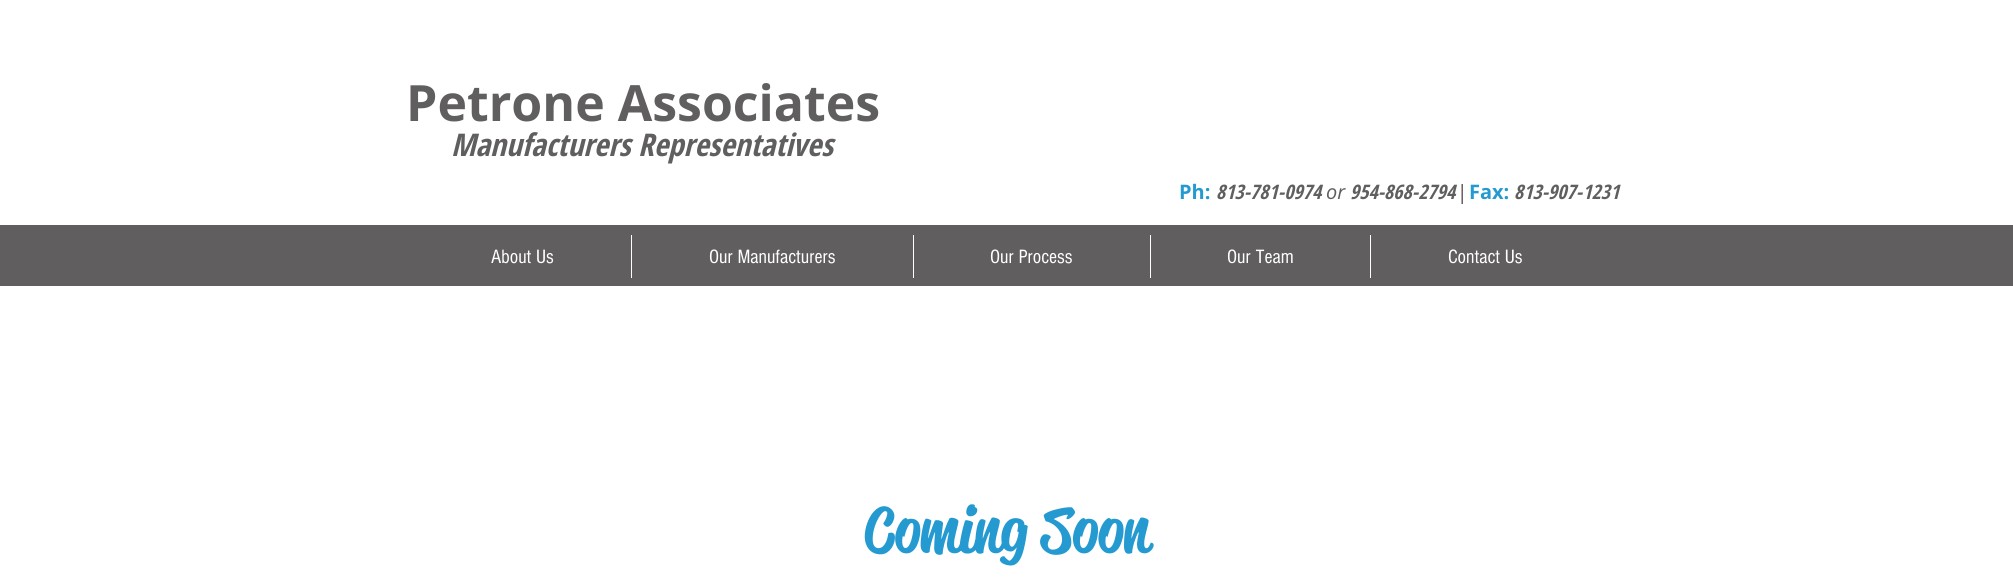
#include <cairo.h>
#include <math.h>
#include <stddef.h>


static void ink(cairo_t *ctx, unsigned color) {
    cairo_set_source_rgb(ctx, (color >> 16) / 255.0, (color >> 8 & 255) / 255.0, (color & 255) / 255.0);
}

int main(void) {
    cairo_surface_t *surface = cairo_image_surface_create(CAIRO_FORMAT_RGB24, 2013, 583);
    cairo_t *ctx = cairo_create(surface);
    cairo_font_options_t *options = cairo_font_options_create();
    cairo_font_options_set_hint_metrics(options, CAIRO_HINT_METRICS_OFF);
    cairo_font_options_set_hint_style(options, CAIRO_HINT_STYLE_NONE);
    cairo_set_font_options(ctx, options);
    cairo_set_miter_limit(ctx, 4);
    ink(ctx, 0xFFFFFF);
    cairo_paint(ctx);
    cairo_select_font_face(ctx, "Open Sans", CAIRO_FONT_SLANT_NORMAL, CAIRO_FONT_WEIGHT_BOLD);
    cairo_set_font_size(ctx, 50);
    ink(ctx, 0x605E5E);
    cairo_move_to(ctx, 406, 121);
    cairo_show_text(ctx, "Petrone Associates");
    cairo_select_font_face(ctx, "Open Sans Condensed", CAIRO_FONT_SLANT_ITALIC, CAIRO_FONT_WEIGHT_BOLD);
    cairo_set_font_size(ctx, 31.25);
    cairo_move_to(ctx, 451, 156);
    cairo_show_text(ctx, "Manufacturers Representatives");
    cairo_select_font_face(ctx, "Open Sans", CAIRO_FONT_SLANT_NORMAL, CAIRO_FONT_WEIGHT_BOLD);
    cairo_set_font_size(ctx, 20);
    ink(ctx, 0x249AD1);
    cairo_move_to(ctx, 1179, 199);
    cairo_show_text(ctx, "Ph:");
    cairo_select_font_face(ctx, "Open Sans Condensed", CAIRO_FONT_SLANT_ITALIC, CAIRO_FONT_WEIGHT_BOLD);
    ink(ctx, 0x605E5E);
    cairo_move_to(ctx, 1216, 199);
    cairo_show_text(ctx, "813-781-0974");
    cairo_select_font_face(ctx, "Open Sans", CAIRO_FONT_SLANT_ITALIC, CAIRO_FONT_WEIGHT_NORMAL);
    cairo_move_to(ctx, 1326, 199);
    cairo_show_text(ctx, "or");
    cairo_select_font_face(ctx, "Open Sans Condensed", CAIRO_FONT_SLANT_ITALIC, CAIRO_FONT_WEIGHT_BOLD);
    cairo_move_to(ctx, 1350, 199);
    cairo_show_text(ctx, "954-868-2794");
    cairo_select_font_face(ctx, "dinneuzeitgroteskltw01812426", CAIRO_FONT_SLANT_NORMAL, CAIRO_FONT_WEIGHT_NORMAL);
    cairo_move_to(ctx, 1460, 199);
    cairo_show_text(ctx, "|");
    cairo_select_font_face(ctx, "Open Sans", CAIRO_FONT_SLANT_NORMAL, CAIRO_FONT_WEIGHT_BOLD);
    ink(ctx, 0x249AD1);
    cairo_move_to(ctx, 1469, 199);
    cairo_show_text(ctx, "Fax:");
    cairo_select_font_face(ctx, "Open Sans Condensed", CAIRO_FONT_SLANT_ITALIC, CAIRO_FONT_WEIGHT_BOLD);
    ink(ctx, 0x605E5E);
    cairo_move_to(ctx, 1514, 199);
    cairo_show_text(ctx, "813-907-1231");
    cairo_rectangle(ctx, 0, 225, 2013, 61);
    cairo_fill(ctx);
    cairo_select_font_face(ctx, "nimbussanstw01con", CAIRO_FONT_SLANT_NORMAL, CAIRO_FONT_WEIGHT_NORMAL);
    ink(ctx, 0xFFFFFF);
    cairo_move_to(ctx, 491, 263);
    cairo_show_text(ctx, "About Us");
    cairo_rectangle(ctx, 631, 235, 1, 43);
    cairo_fill(ctx);
    cairo_move_to(ctx, 709, 263);
    cairo_show_text(ctx, "Our Manufacturers");
    cairo_rectangle(ctx, 913, 235, 1, 43);
    cairo_fill(ctx);
    cairo_move_to(ctx, 990, 263);
    cairo_show_text(ctx, "Our Process");
    cairo_rectangle(ctx, 1150, 235, 1, 43);
    cairo_fill(ctx);
    cairo_move_to(ctx, 1227, 263);
    cairo_show_text(ctx, "Our Team");
    cairo_rectangle(ctx, 1370, 235, 1, 43);
    cairo_fill(ctx);
    cairo_move_to(ctx, 1448, 263);
    cairo_show_text(ctx, "Contact Us");
    cairo_select_font_face(ctx, "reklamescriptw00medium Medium", CAIRO_FONT_SLANT_NORMAL, CAIRO_FONT_WEIGHT_NORMAL);
    cairo_set_font_size(ctx, 62.5);
    ink(ctx, 0x249AD1);
    cairo_move_to(ctx, 864, 551);
    cairo_show_text(ctx, "Coming Soon");
    cairo_surface_write_to_png(surface, "image.png");
    cairo_font_options_destroy(options);
    cairo_destroy(ctx);
    cairo_surface_destroy(surface);
    return 0;
}
